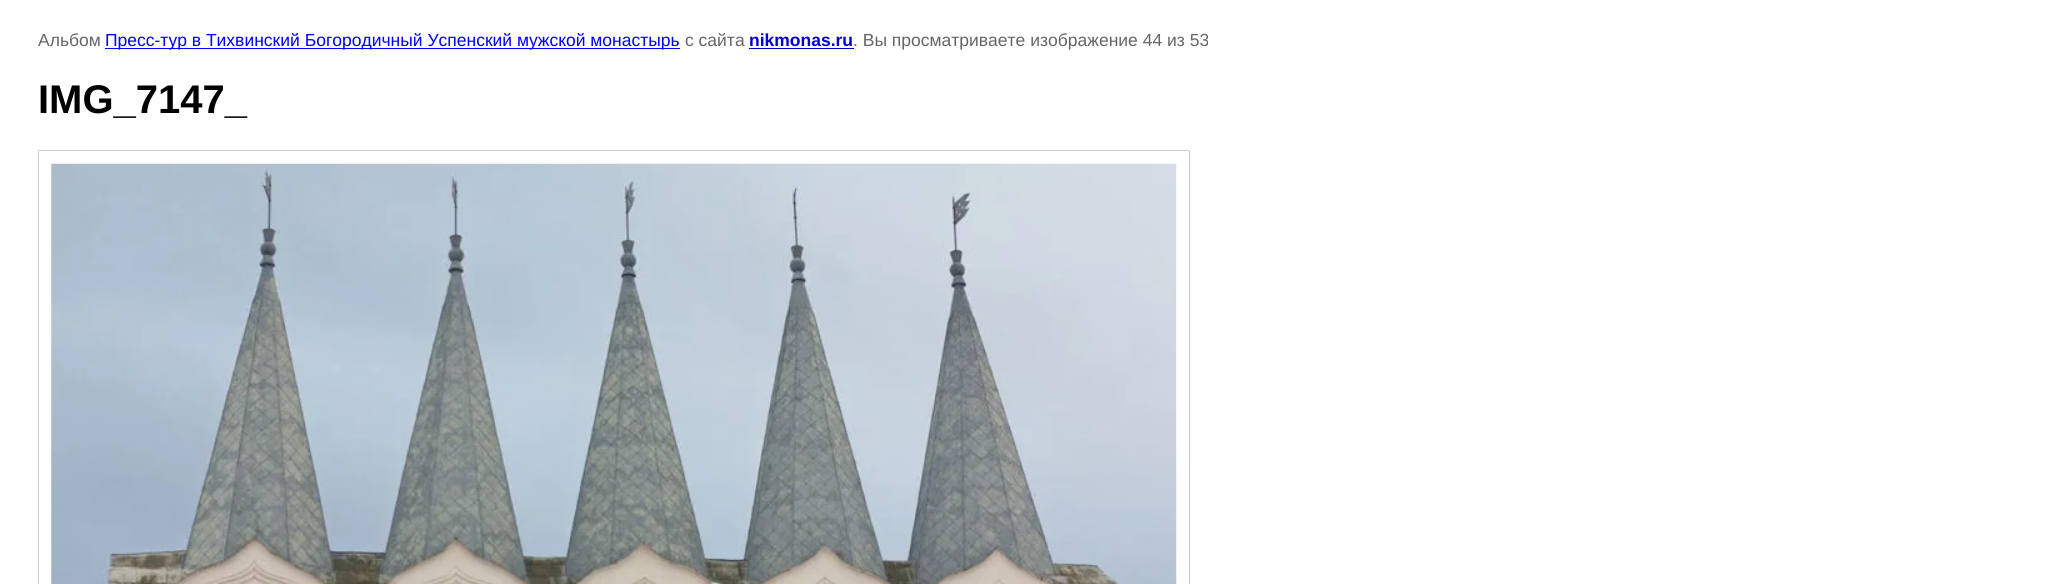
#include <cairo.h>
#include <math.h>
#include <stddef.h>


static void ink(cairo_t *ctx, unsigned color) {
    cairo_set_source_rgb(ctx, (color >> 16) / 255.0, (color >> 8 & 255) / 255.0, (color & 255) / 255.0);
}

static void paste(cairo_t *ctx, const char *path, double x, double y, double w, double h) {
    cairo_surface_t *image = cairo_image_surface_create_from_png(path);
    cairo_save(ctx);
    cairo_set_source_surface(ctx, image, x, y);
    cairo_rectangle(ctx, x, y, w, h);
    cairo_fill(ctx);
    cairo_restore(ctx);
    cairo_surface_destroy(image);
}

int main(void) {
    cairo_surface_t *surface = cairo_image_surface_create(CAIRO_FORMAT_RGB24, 2071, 584);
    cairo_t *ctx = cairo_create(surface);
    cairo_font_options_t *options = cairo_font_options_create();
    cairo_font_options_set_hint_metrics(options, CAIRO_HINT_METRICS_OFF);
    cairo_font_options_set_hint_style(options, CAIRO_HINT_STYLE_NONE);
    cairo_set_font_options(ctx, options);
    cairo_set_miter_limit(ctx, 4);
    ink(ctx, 0xFFFFFF);
    cairo_paint(ctx);
    cairo_select_font_face(ctx, "Liberation Sans", CAIRO_FONT_SLANT_NORMAL, CAIRO_FONT_WEIGHT_NORMAL);
    cairo_set_font_size(ctx, 17.5);
    ink(ctx, 0x666666);
    cairo_move_to(ctx, 38, 46);
    cairo_show_text(ctx, "Альбом");
    ink(ctx, 0x0000FF);
    cairo_rectangle(ctx, 105, 48, 575, 1);
    cairo_fill(ctx);
    cairo_move_to(ctx, 105, 46);
    cairo_show_text(ctx, "Пресс-тур в Тихвинский Богородичный Успенский мужской монастырь");
    ink(ctx, 0x666666);
    cairo_move_to(ctx, 685, 46);
    cairo_show_text(ctx, "с сайта");
    cairo_select_font_face(ctx, "Liberation Sans", CAIRO_FONT_SLANT_NORMAL, CAIRO_FONT_WEIGHT_BOLD);
    ink(ctx, 0x0000CC);
    cairo_move_to(ctx, 749, 46);
    cairo_show_text(ctx, "nikmonas.ru");
    cairo_rectangle(ctx, 749, 48, 105, 1);
    cairo_fill(ctx);
    cairo_select_font_face(ctx, "Liberation Sans", CAIRO_FONT_SLANT_NORMAL, CAIRO_FONT_WEIGHT_NORMAL);
    ink(ctx, 0x666666);
    cairo_move_to(ctx, 853, 46);
    cairo_show_text(ctx, ". Вы просматриваете изображение 44 из 53");
    cairo_select_font_face(ctx, "Liberation Sans", CAIRO_FONT_SLANT_NORMAL, CAIRO_FONT_WEIGHT_BOLD);
    cairo_set_font_size(ctx, 40);
    ink(ctx, 0x000000);
    cairo_move_to(ctx, 38, 113);
    cairo_show_text(ctx, "IMG_7147_");
    cairo_rectangle(ctx, 38.5, 150.5, 1151, 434);
    ink(ctx, 0xCCCCCC);
    cairo_set_line_width(ctx, 1);
    cairo_stroke(ctx);
    paste(ctx, "media/1.png", 51, 163, 1126, 421);
    cairo_surface_write_to_png(surface, "image.png");
    cairo_font_options_destroy(options);
    cairo_destroy(ctx);
    cairo_surface_destroy(surface);
    return 0;
}
